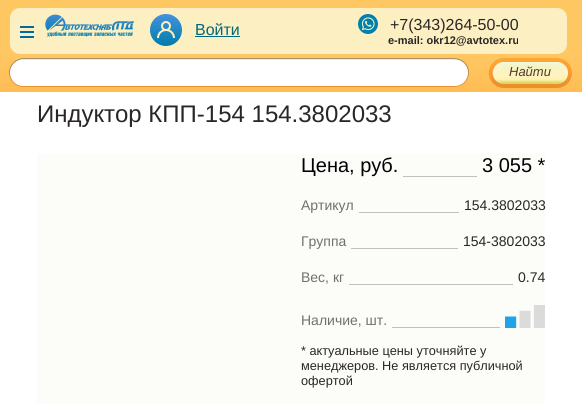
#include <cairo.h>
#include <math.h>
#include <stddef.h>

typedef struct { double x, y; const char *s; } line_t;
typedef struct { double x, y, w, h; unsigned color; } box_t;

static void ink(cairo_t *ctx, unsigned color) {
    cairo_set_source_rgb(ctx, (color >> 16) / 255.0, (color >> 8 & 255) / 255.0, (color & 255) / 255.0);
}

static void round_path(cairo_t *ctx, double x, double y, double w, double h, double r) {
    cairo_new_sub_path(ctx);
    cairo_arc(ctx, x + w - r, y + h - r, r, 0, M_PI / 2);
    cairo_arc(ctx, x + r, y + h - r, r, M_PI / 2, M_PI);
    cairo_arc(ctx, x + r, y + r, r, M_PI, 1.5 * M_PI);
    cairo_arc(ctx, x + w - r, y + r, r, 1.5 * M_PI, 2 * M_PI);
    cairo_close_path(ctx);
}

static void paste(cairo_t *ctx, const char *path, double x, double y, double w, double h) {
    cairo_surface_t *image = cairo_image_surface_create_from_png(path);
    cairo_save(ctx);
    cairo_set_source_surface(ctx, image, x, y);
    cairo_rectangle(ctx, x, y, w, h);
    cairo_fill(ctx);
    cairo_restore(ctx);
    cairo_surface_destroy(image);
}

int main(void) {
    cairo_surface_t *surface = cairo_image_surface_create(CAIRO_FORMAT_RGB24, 582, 404);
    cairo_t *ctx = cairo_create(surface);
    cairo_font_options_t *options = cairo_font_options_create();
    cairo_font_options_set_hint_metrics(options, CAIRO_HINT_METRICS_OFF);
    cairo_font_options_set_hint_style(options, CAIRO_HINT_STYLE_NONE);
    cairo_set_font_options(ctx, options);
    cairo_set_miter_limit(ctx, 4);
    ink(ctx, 0xFFFFFF);
    cairo_paint(ctx);
    paste(ctx, "media/1.png", 0, 0, 582, 92);
    ink(ctx, 0xFCEFC1);
    round_path(ctx, 10, 8, 557, 46, 10);
    cairo_fill(ctx);
    paste(ctx, "media/2.png", 150, 14, 32, 32);
    cairo_select_font_face(ctx, "Liberation Sans", CAIRO_FONT_SLANT_NORMAL, CAIRO_FONT_WEIGHT_NORMAL);
    cairo_set_font_size(ctx, 16);
    ink(ctx, 0x00677D);
    cairo_move_to(ctx, 195, 35);
    cairo_show_text(ctx, "Войти");
    cairo_rectangle(ctx, 195, 36, 45, 1);
    cairo_fill(ctx);
    paste(ctx, "media/3.png", 358, 14, 20, 20);
    ink(ctx, 0x2A2626);
    cairo_move_to(ctx, 390, 30);
    cairo_show_text(ctx, "+7(343)264-50-00");
    cairo_select_font_face(ctx, "Liberation Sans", CAIRO_FONT_SLANT_NORMAL, CAIRO_FONT_WEIGHT_BOLD);
    cairo_set_font_size(ctx, 11);
    cairo_move_to(ctx, 388, 44);
    cairo_show_text(ctx, "e-mail: okr12@avtotex.ru");
    {
        static const box_t items[] = {
            {20, 26, 14, 2, 0x006AA1},
            {20, 31, 14, 2, 0x006AA1},
            {20, 36, 14, 2, 0x006AA1},
        };
        for (size_t i = 0; i < sizeof items / sizeof *items; i++) {
            ink(ctx, items[i].color);
            cairo_rectangle(ctx, items[i].x, items[i].y, items[i].w, items[i].h);
            cairo_fill(ctx);
        }
    }
    paste(ctx, "media/4.png", 45, 14, 89, 23);
    paste(ctx, "media/5.png", 9, 58, 12, 29);
    paste(ctx, "media/6.png", 21, 58, 448, 30);
    paste(ctx, "media/7.png", 488, 58, 63, 30);
    paste(ctx, "media/8.png", 551, 58, 21, 30);
    cairo_select_font_face(ctx, "Liberation Sans", CAIRO_FONT_SLANT_ITALIC, CAIRO_FONT_WEIGHT_NORMAL);
    cairo_set_font_size(ctx, 13);
    ink(ctx, 0x4F3C2A);
    cairo_move_to(ctx, 509, 76);
    cairo_show_text(ctx, "Найти");
    cairo_select_font_face(ctx, "Liberation Sans", CAIRO_FONT_SLANT_NORMAL, CAIRO_FONT_WEIGHT_NORMAL);
    cairo_set_font_size(ctx, 24);
    ink(ctx, 0x2A2626);
    cairo_move_to(ctx, 37, 122);
    cairo_show_text(ctx, "Индуктор КПП-154 154.3802033");
    ink(ctx, 0xFCFCF9);
    cairo_rectangle(ctx, 37, 154, 508, 250);
    cairo_fill(ctx);
    cairo_set_font_size(ctx, 20);
    ink(ctx, 0x000000);
    cairo_move_to(ctx, 301, 172);
    cairo_show_text(ctx, "Цена, руб.");
    cairo_move_to(ctx, 482, 172);
    cairo_show_text(ctx, "3 055 *");
    ink(ctx, 0xC0C0C0);
    cairo_rectangle(ctx, 403, 176, 74, 1);
    cairo_fill(ctx);
    cairo_set_font_size(ctx, 14);
    ink(ctx, 0x707070);
    cairo_move_to(ctx, 301, 210);
    cairo_show_text(ctx, "Артикул");
    ink(ctx, 0x2A2626);
    cairo_move_to(ctx, 464, 210);
    cairo_show_text(ctx, "154.3802033");
    ink(ctx, 0xC0C0C0);
    cairo_rectangle(ctx, 359, 212, 100, 1);
    cairo_fill(ctx);
    ink(ctx, 0x707070);
    cairo_move_to(ctx, 301, 246);
    cairo_show_text(ctx, "Группа");
    ink(ctx, 0x2A2626);
    cairo_move_to(ctx, 463, 246);
    cairo_show_text(ctx, "154-3802033");
    ink(ctx, 0xC0C0C0);
    cairo_rectangle(ctx, 351, 248, 107, 1);
    cairo_fill(ctx);
    ink(ctx, 0x707070);
    cairo_move_to(ctx, 301, 282);
    cairo_show_text(ctx, "Вес, кг");
    ink(ctx, 0x2A2626);
    cairo_move_to(ctx, 518, 282);
    cairo_show_text(ctx, "0.74");
    ink(ctx, 0xC0C0C0);
    cairo_rectangle(ctx, 349, 284, 164, 1);
    cairo_fill(ctx);
    ink(ctx, 0x707070);
    cairo_move_to(ctx, 301, 325);
    cairo_show_text(ctx, "Наличие, шт.");
    paste(ctx, "media/9.png", 505, 305, 40, 23);
    ink(ctx, 0xC0C0C0);
    cairo_rectangle(ctx, 392, 327, 108, 1);
    cairo_fill(ctx);
    cairo_set_font_size(ctx, 12.75);
    ink(ctx, 0x2A2626);
    {
        static const line_t items[] = {
            {301, 355, "* актуальные цены уточняйте у"},
            {301, 370, "менеджеров. Не является публичной"},
            {301, 385, "офертой"},
        };
        for (size_t i = 0; i < sizeof items / sizeof *items; i++) {
            cairo_move_to(ctx, items[i].x, items[i].y);
            cairo_show_text(ctx, items[i].s);
        }
    }
    cairo_surface_write_to_png(surface, "image.png");
    cairo_font_options_destroy(options);
    cairo_destroy(ctx);
    cairo_surface_destroy(surface);
    return 0;
}
